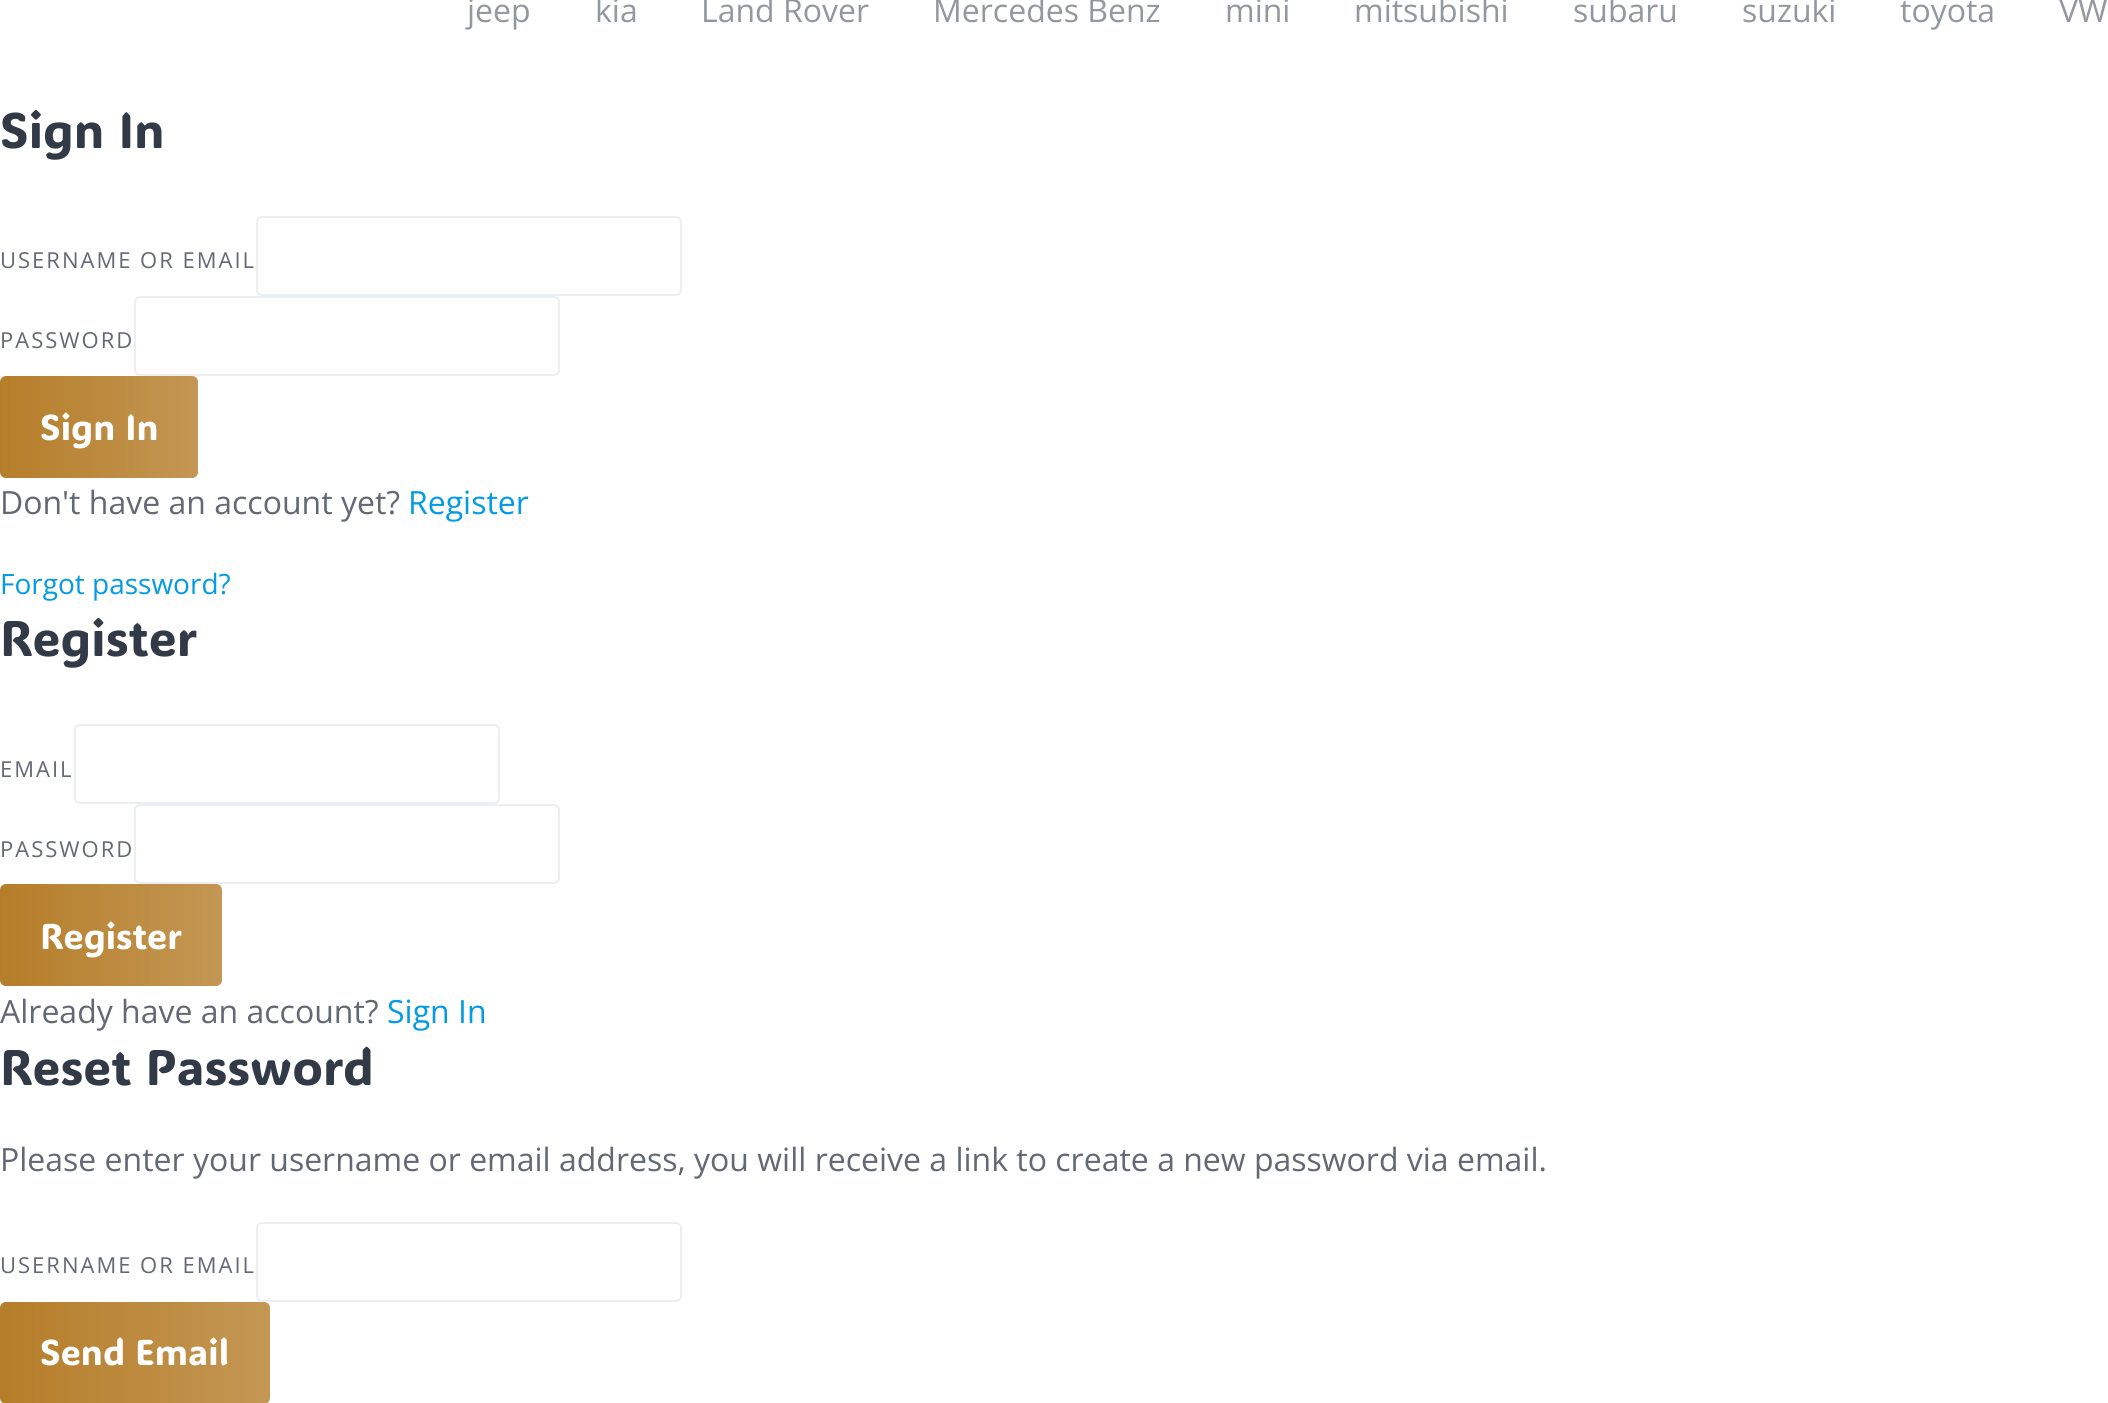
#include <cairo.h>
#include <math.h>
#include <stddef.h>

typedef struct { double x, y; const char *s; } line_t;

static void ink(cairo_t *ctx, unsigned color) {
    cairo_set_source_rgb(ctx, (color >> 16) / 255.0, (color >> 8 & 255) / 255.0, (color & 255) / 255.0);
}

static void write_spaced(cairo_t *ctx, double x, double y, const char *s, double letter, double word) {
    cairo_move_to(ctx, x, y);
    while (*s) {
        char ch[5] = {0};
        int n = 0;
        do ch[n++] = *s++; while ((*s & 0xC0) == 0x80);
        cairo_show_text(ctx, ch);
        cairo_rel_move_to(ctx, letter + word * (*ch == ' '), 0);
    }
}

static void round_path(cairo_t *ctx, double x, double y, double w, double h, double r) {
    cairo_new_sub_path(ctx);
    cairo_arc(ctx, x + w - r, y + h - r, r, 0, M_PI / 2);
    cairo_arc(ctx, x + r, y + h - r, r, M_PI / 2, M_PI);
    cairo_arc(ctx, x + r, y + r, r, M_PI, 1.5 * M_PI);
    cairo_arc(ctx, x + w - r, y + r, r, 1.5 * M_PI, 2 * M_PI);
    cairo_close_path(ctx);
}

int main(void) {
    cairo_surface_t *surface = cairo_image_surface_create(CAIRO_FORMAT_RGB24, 2108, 1403);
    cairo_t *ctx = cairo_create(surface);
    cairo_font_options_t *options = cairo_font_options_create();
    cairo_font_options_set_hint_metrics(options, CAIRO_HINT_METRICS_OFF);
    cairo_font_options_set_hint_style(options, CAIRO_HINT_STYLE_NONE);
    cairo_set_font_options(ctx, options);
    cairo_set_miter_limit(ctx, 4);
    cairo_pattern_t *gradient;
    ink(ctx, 0xFFFFFF);
    cairo_paint(ctx);
    cairo_select_font_face(ctx, "Open Sans", CAIRO_FONT_SLANT_NORMAL, CAIRO_FONT_WEIGHT_NORMAL);
    cairo_set_font_size(ctx, 32);
    ink(ctx, 0x93979E);
    {
        static const line_t items[] = {
            {467, 22, "jeep"},
            {595, 22, "kia"},
            {701, 22, "Land Rover"},
            {933, 22, "Mercedes Benz"},
            {1225, 22, "mini"},
            {1354, 22, "mitsubishi"},
            {1573, 22, "subaru"},
            {1742, 22, "suzuki"},
            {1900, 22, "toyota"},
            {2059, 22, "VW"},
        };
        for (size_t i = 0; i < sizeof items / sizeof *items; i++) {
            cairo_move_to(ctx, items[i].x, items[i].y);
            cairo_show_text(ctx, items[i].s);
        }
    }
    cairo_select_font_face(ctx, "ADLaM Display", CAIRO_FONT_SLANT_NORMAL, CAIRO_FONT_WEIGHT_NORMAL);
    cairo_set_font_size(ctx, 50);
    ink(ctx, 0x333A47);
    cairo_move_to(ctx, 0, 148);
    cairo_show_text(ctx, "Sign In");
    cairo_select_font_face(ctx, "Open Sans", CAIRO_FONT_SLANT_NORMAL, CAIRO_FONT_WEIGHT_NORMAL);
    cairo_set_font_size(ctx, 22);
    ink(ctx, 0x636873);
    write_spaced(ctx, 0, 268, "USERNAME OR EMAIL", 2, 0);
    round_path(ctx, 257, 217, 424, 78, 5);
    ink(ctx, 0xECEFF2);
    cairo_stroke(ctx);
    ink(ctx, 0x636873);
    write_spaced(ctx, 0, 348, "PASSWORD", 2, 0);
    round_path(ctx, 135, 297, 424, 78, 5);
    ink(ctx, 0xECEFF2);
    cairo_stroke(ctx);
    ink(ctx, 0xB57D29);
    round_path(ctx, 0, 376, 198, 102, 6);
    cairo_fill(ctx);
    gradient = cairo_pattern_create_linear(0, 427, 198, 427);
    cairo_pattern_add_color_stop_rgba(gradient, 0, 1, 1, 1, 0);
    cairo_pattern_add_color_stop_rgba(gradient, 1, 1, 1, 1, 0.2);
    cairo_set_source(ctx, gradient);
    cairo_pattern_destroy(gradient);
    round_path(ctx, 0, 376, 198, 102, 6);
    cairo_fill(ctx);
    cairo_select_font_face(ctx, "ADLaM Display", CAIRO_FONT_SLANT_NORMAL, CAIRO_FONT_WEIGHT_NORMAL);
    cairo_set_font_size(ctx, 36);
    ink(ctx, 0xFFFFFF);
    cairo_move_to(ctx, 40, 440);
    cairo_show_text(ctx, "Sign In");
    cairo_select_font_face(ctx, "Open Sans", CAIRO_FONT_SLANT_NORMAL, CAIRO_FONT_WEIGHT_NORMAL);
    cairo_set_font_size(ctx, 32);
    ink(ctx, 0x636873);
    cairo_move_to(ctx, 0, 514);
    cairo_show_text(ctx, "Don't have an account yet?");
    ink(ctx, 0x039BE5);
    cairo_move_to(ctx, 408, 514);
    cairo_show_text(ctx, "Register");
    cairo_set_font_size(ctx, 28);
    cairo_move_to(ctx, 0, 594);
    cairo_show_text(ctx, "Forgot password?");
    cairo_select_font_face(ctx, "ADLaM Display", CAIRO_FONT_SLANT_NORMAL, CAIRO_FONT_WEIGHT_NORMAL);
    cairo_set_font_size(ctx, 50);
    ink(ctx, 0x333A47);
    cairo_move_to(ctx, 0, 656);
    cairo_show_text(ctx, "Register");
    cairo_select_font_face(ctx, "Open Sans", CAIRO_FONT_SLANT_NORMAL, CAIRO_FONT_WEIGHT_NORMAL);
    cairo_set_font_size(ctx, 22);
    ink(ctx, 0x636873);
    write_spaced(ctx, 0, 777, "EMAIL", 2, 0);
    round_path(ctx, 75, 725, 424, 78, 5);
    ink(ctx, 0xECEFF2);
    cairo_stroke(ctx);
    ink(ctx, 0x636873);
    write_spaced(ctx, 0, 857, "PASSWORD", 2, 0);
    round_path(ctx, 135, 805, 424, 78, 5);
    ink(ctx, 0xECEFF2);
    cairo_stroke(ctx);
    ink(ctx, 0xB57D29);
    round_path(ctx, 0, 884, 222, 102, 6);
    cairo_fill(ctx);
    gradient = cairo_pattern_create_linear(0, 935, 222, 935);
    cairo_pattern_add_color_stop_rgba(gradient, 0, 1, 1, 1, 0);
    cairo_pattern_add_color_stop_rgba(gradient, 1, 1, 1, 1, 0.2);
    cairo_set_source(ctx, gradient);
    cairo_pattern_destroy(gradient);
    round_path(ctx, 0, 884, 222, 102, 6);
    cairo_fill(ctx);
    cairo_select_font_face(ctx, "ADLaM Display", CAIRO_FONT_SLANT_NORMAL, CAIRO_FONT_WEIGHT_NORMAL);
    cairo_set_font_size(ctx, 36);
    ink(ctx, 0xFFFFFF);
    cairo_move_to(ctx, 40, 949);
    cairo_show_text(ctx, "Register");
    cairo_select_font_face(ctx, "Open Sans", CAIRO_FONT_SLANT_NORMAL, CAIRO_FONT_WEIGHT_NORMAL);
    cairo_set_font_size(ctx, 32);
    ink(ctx, 0x636873);
    cairo_move_to(ctx, 0, 1023);
    cairo_show_text(ctx, "Already have an account?");
    ink(ctx, 0x039BE5);
    cairo_move_to(ctx, 387, 1023);
    cairo_show_text(ctx, "Sign In");
    cairo_select_font_face(ctx, "ADLaM Display", CAIRO_FONT_SLANT_NORMAL, CAIRO_FONT_WEIGHT_NORMAL);
    cairo_set_font_size(ctx, 50);
    ink(ctx, 0x333A47);
    cairo_move_to(ctx, 0, 1085);
    cairo_show_text(ctx, "Reset Password");
    cairo_select_font_face(ctx, "Open Sans", CAIRO_FONT_SLANT_NORMAL, CAIRO_FONT_WEIGHT_NORMAL);
    cairo_set_font_size(ctx, 32);
    ink(ctx, 0x636873);
    cairo_move_to(ctx, 0, 1171);
    cairo_show_text(ctx, "Please enter your username or email address, you will receive a link to create a new password via email.");
    cairo_set_font_size(ctx, 22);
    write_spaced(ctx, 0, 1273, "USERNAME OR EMAIL", 2, 0);
    round_path(ctx, 257, 1223, 424, 78, 5);
    ink(ctx, 0xECEFF2);
    cairo_stroke(ctx);
    ink(ctx, 0xB57D29);
    round_path(ctx, 0, 1302, 270, 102, 6);
    cairo_fill(ctx);
    gradient = cairo_pattern_create_linear(0, 1353, 270, 1353);
    cairo_pattern_add_color_stop_rgba(gradient, 0, 1, 1, 1, 0);
    cairo_pattern_add_color_stop_rgba(gradient, 1, 1, 1, 1, 0.2);
    cairo_set_source(ctx, gradient);
    cairo_pattern_destroy(gradient);
    round_path(ctx, 0, 1302, 270, 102, 6);
    cairo_fill(ctx);
    cairo_select_font_face(ctx, "ADLaM Display", CAIRO_FONT_SLANT_NORMAL, CAIRO_FONT_WEIGHT_NORMAL);
    cairo_set_font_size(ctx, 36);
    ink(ctx, 0xFFFFFF);
    cairo_move_to(ctx, 40, 1365);
    cairo_show_text(ctx, "Send Email");
    cairo_surface_write_to_png(surface, "image.png");
    cairo_font_options_destroy(options);
    cairo_destroy(ctx);
    cairo_surface_destroy(surface);
    return 0;
}
